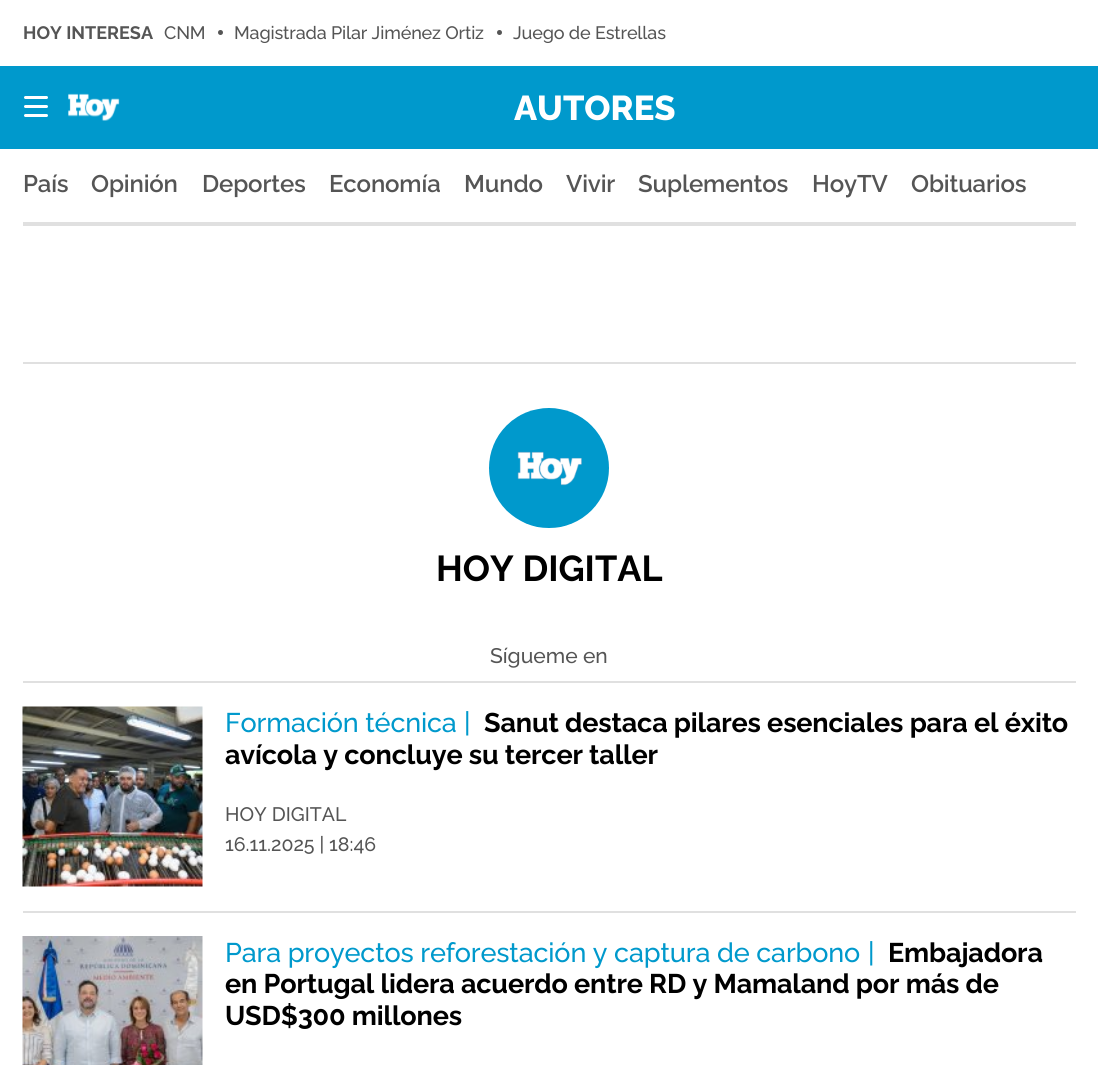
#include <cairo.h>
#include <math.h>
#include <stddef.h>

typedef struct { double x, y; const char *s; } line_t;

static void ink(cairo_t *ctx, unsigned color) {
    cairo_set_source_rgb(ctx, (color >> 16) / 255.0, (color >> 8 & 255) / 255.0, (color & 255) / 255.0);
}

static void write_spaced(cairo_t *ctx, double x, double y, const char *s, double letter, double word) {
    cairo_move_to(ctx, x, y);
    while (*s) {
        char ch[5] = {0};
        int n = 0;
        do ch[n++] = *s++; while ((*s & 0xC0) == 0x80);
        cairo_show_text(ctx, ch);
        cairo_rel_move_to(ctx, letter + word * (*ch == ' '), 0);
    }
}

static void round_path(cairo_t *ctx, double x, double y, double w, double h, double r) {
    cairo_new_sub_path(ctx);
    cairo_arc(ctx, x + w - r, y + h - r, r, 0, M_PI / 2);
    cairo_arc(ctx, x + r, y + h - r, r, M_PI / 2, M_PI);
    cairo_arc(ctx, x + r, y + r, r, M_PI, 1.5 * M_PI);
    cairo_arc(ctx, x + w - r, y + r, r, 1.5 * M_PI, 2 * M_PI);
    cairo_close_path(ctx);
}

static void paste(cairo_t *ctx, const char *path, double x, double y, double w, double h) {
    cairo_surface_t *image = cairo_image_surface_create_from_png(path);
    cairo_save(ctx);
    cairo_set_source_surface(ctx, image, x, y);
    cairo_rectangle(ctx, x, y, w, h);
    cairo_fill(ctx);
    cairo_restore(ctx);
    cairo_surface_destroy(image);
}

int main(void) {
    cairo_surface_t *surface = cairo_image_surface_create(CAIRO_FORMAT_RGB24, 1098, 1065);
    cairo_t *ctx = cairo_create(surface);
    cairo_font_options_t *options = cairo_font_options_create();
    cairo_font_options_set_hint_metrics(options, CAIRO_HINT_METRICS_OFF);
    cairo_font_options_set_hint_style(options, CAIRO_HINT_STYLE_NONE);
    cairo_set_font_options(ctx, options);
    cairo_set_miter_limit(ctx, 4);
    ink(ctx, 0xFFFFFF);
    cairo_paint(ctx);
    ink(ctx, 0x0099CC);
    cairo_rectangle(ctx, 0, 66, 1098, 83);
    cairo_fill(ctx);
    cairo_select_font_face(ctx, "Raleway", CAIRO_FONT_SLANT_NORMAL, CAIRO_FONT_WEIGHT_BOLD);
    cairo_set_font_size(ctx, 18);
    ink(ctx, 0x555555);
    cairo_move_to(ctx, 23, 39);
    cairo_show_text(ctx, "HOY INTERESA");
    cairo_select_font_face(ctx, "Raleway Medium", CAIRO_FONT_SLANT_NORMAL, CAIRO_FONT_WEIGHT_NORMAL);
    write_spaced(ctx, 164, 39, "CNM", -0.15, 0);
    cairo_new_path(ctx);
    cairo_arc(ctx, 220.5, 32.5, 2.5, 0, 2 * M_PI);
    cairo_fill(ctx);
    write_spaced(ctx, 234, 39, "Magistrada Pilar Jiménez Ortiz", -0.15, 0);
    cairo_new_path(ctx);
    cairo_arc(ctx, 499.5, 32.5, 2.5, 0, 2 * M_PI);
    cairo_fill(ctx);
    write_spaced(ctx, 513, 39, "Juego de Estrellas", -0.15, 0);
    ink(ctx, 0xFFFFFF);
    round_path(ctx, 24, 105, 24, 3, 1.5);
    cairo_fill(ctx);
    round_path(ctx, 24, 96, 24, 3, 1.5);
    cairo_fill(ctx);
    round_path(ctx, 24, 114, 24, 3, 1.5);
    cairo_fill(ctx);
    paste(ctx, "media/1.png", 68, 93, 52, 28);
    cairo_select_font_face(ctx, "Raleway ExtraBold", CAIRO_FONT_SLANT_NORMAL, CAIRO_FONT_WEIGHT_NORMAL);
    cairo_set_font_size(ctx, 34.5);
    cairo_move_to(ctx, 514, 120);
    cairo_show_text(ctx, "AUTORES");
    cairo_select_font_face(ctx, "Raleway SemiBold", CAIRO_FONT_SLANT_NORMAL, CAIRO_FONT_WEIGHT_NORMAL);
    cairo_set_font_size(ctx, 24);
    ink(ctx, 0x555555);
    {
        static const line_t items[] = {
            {23, 192, "País"},
            {91, 192, "Opinión"},
            {202, 192, "Deportes"},
            {329, 192, "Economía"},
            {464, 192, "Mundo"},
            {566, 192, "Vivir"},
            {638, 192, "Suplementos"},
            {812, 192, "HoyTV"},
            {911, 192, "Obituarios"},
        };
        for (size_t i = 0; i < sizeof items / sizeof *items; i++) {
            write_spaced(ctx, items[i].x, items[i].y, items[i].s, -0.15, 0);
        }
    }
    ink(ctx, 0xE0E0E0);
    cairo_rectangle(ctx, 23, 222, 1053, 4);
    cairo_fill(ctx);
    cairo_rectangle(ctx, 23, 362, 1053, 2);
    cairo_fill(ctx);
    paste(ctx, "media/2.png", 489, 408, 120, 120);
    cairo_select_font_face(ctx, "Raleway", CAIRO_FONT_SLANT_NORMAL, CAIRO_FONT_WEIGHT_BOLD);
    cairo_set_font_size(ctx, 36);
    ink(ctx, 0x000000);
    cairo_move_to(ctx, 436, 581);
    cairo_show_text(ctx, "HOY DIGITAL");
    cairo_select_font_face(ctx, "Raleway Medium", CAIRO_FONT_SLANT_NORMAL, CAIRO_FONT_WEIGHT_NORMAL);
    cairo_set_font_size(ctx, 21);
    ink(ctx, 0x555555);
    cairo_move_to(ctx, 490, 663);
    cairo_show_text(ctx, "Sígueme en");
    ink(ctx, 0xE0E0E0);
    cairo_rectangle(ctx, 23, 681, 1053, 2);
    cairo_fill(ctx);
    paste(ctx, "media/3.png", 22, 706, 181, 181);
    cairo_set_font_size(ctx, 27);
    ink(ctx, 0x0099CC);
    write_spaced(ctx, 225, 732, "Formación técnica", -0.15, 0);
    write_spaced(ctx, 464, 732, "|", -0.15, 0);
    cairo_select_font_face(ctx, "Raleway", CAIRO_FONT_SLANT_NORMAL, CAIRO_FONT_WEIGHT_BOLD);
    ink(ctx, 0x000000);
    write_spaced(ctx, 484, 732, "Sanut destaca pilares esenciales para el éxito", -0.15, 0);
    write_spaced(ctx, 225, 764, "avícola y concluye su tercer taller", -0.15, 0);
    cairo_select_font_face(ctx, "Raleway Medium", CAIRO_FONT_SLANT_NORMAL, CAIRO_FONT_WEIGHT_NORMAL);
    cairo_set_font_size(ctx, 19.5);
    ink(ctx, 0x555555);
    cairo_move_to(ctx, 225, 821);
    cairo_show_text(ctx, "HOY DIGITAL");
    cairo_move_to(ctx, 225, 851);
    cairo_show_text(ctx, "16.11.2025 | 18:46");
    ink(ctx, 0xE0E0E0);
    cairo_rectangle(ctx, 23, 911, 1053, 2);
    cairo_fill(ctx);
    paste(ctx, "media/4.png", 22, 936, 181, 129);
    cairo_set_font_size(ctx, 27);
    ink(ctx, 0x0099CC);
    write_spaced(ctx, 225, 962, "Para proyectos reforestación y captura de carbono", -0.15, 0);
    write_spaced(ctx, 868, 962, "|", -0.15, 0);
    cairo_select_font_face(ctx, "Raleway", CAIRO_FONT_SLANT_NORMAL, CAIRO_FONT_WEIGHT_BOLD);
    ink(ctx, 0x000000);
    {
        static const line_t items[] = {
            {888, 962, "Embajadora"},
            {225, 993, "en Portugal lidera acuerdo entre RD y Mamaland por más de"},
            {225, 1025, "USD$300 millones"},
        };
        for (size_t i = 0; i < sizeof items / sizeof *items; i++) {
            write_spaced(ctx, items[i].x, items[i].y, items[i].s, -0.15, 0);
        }
    }
    cairo_surface_write_to_png(surface, "image.png");
    cairo_font_options_destroy(options);
    cairo_destroy(ctx);
    cairo_surface_destroy(surface);
    return 0;
}
